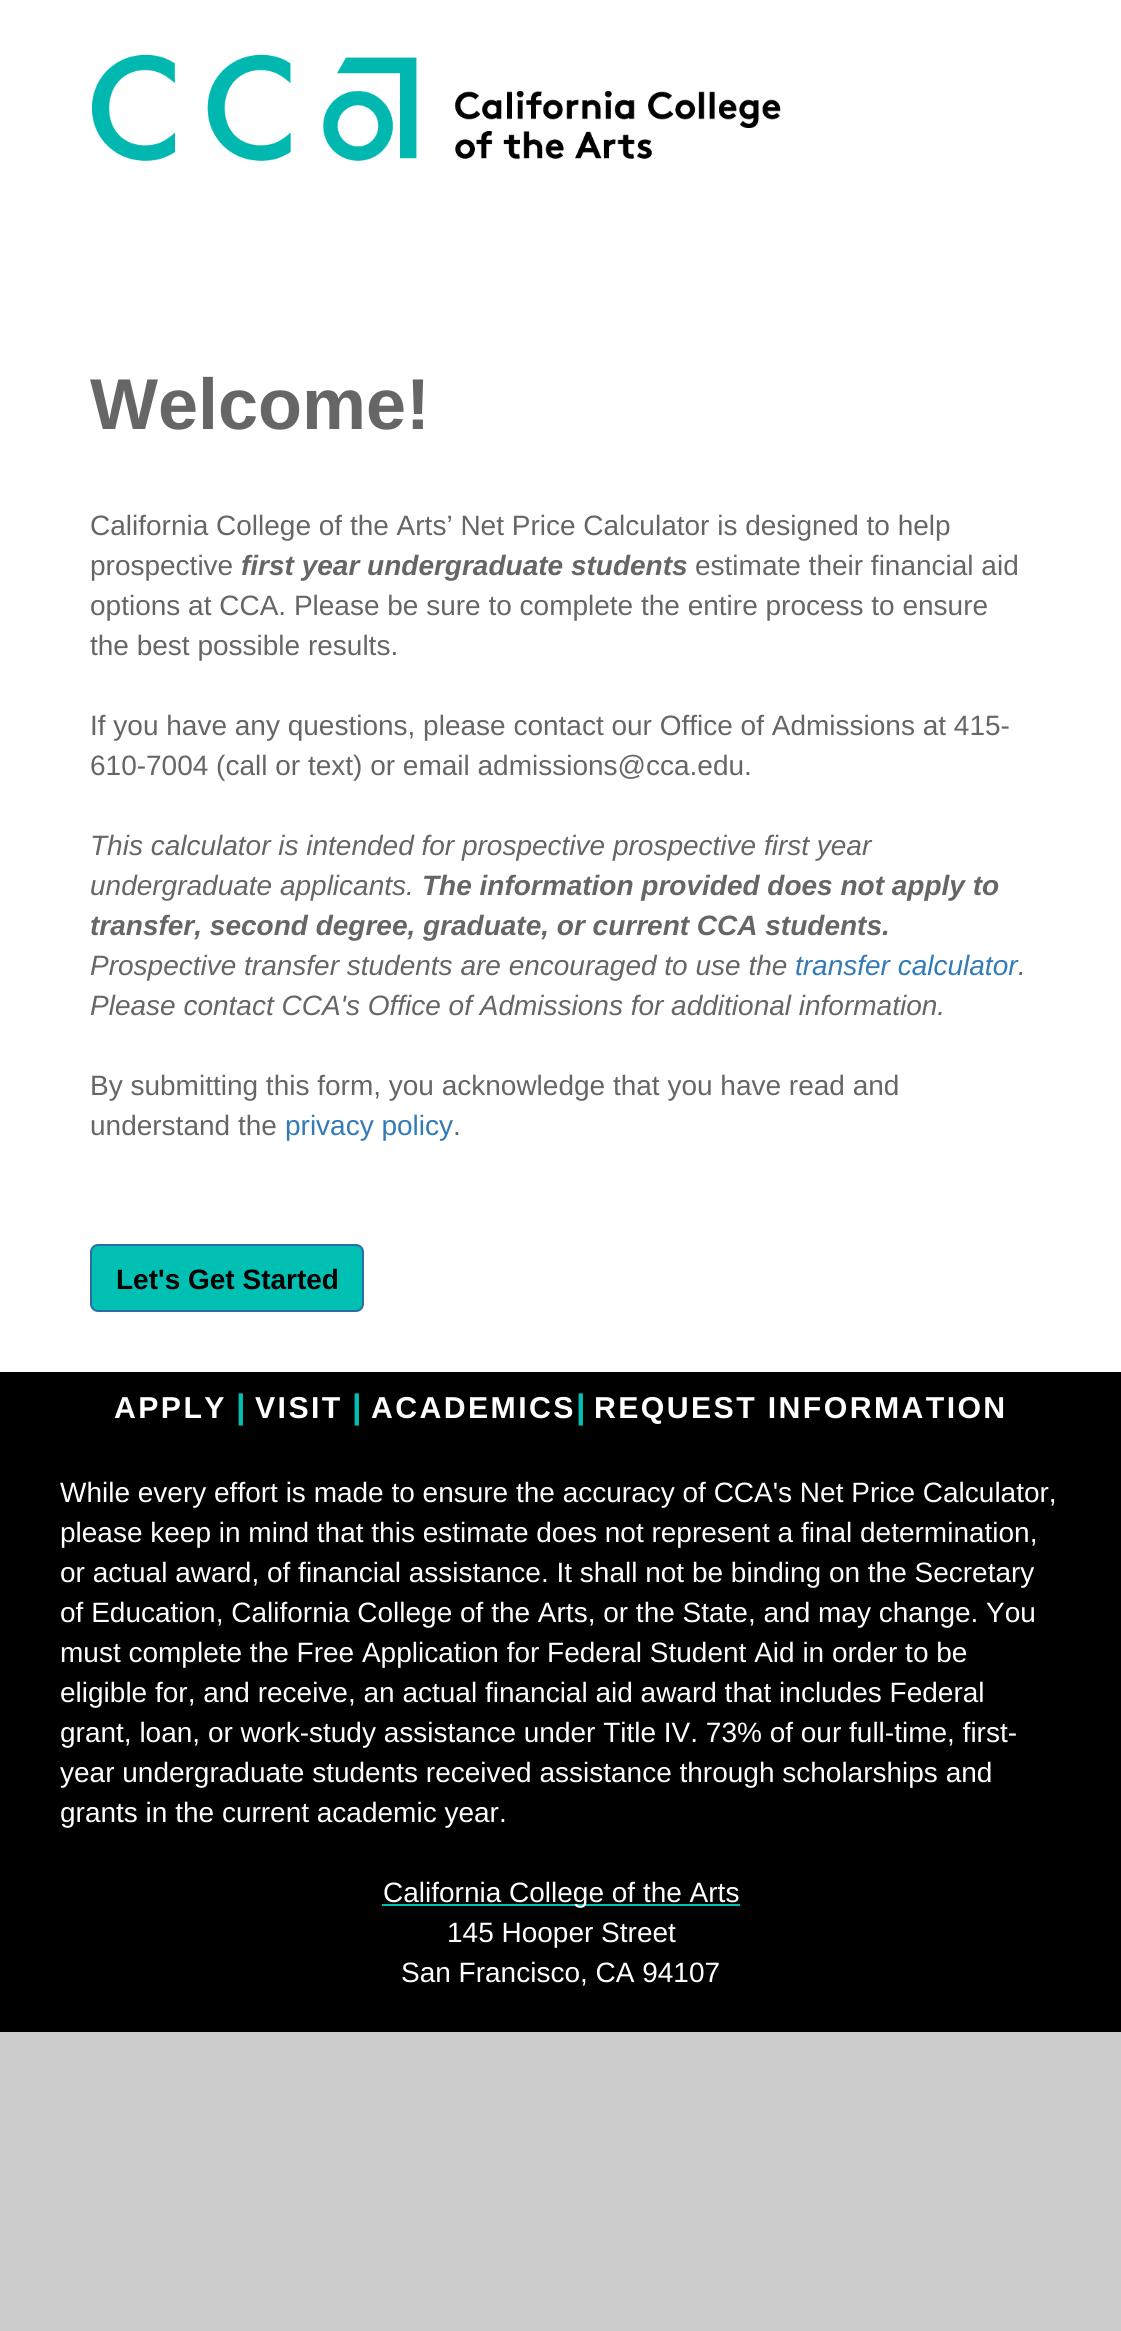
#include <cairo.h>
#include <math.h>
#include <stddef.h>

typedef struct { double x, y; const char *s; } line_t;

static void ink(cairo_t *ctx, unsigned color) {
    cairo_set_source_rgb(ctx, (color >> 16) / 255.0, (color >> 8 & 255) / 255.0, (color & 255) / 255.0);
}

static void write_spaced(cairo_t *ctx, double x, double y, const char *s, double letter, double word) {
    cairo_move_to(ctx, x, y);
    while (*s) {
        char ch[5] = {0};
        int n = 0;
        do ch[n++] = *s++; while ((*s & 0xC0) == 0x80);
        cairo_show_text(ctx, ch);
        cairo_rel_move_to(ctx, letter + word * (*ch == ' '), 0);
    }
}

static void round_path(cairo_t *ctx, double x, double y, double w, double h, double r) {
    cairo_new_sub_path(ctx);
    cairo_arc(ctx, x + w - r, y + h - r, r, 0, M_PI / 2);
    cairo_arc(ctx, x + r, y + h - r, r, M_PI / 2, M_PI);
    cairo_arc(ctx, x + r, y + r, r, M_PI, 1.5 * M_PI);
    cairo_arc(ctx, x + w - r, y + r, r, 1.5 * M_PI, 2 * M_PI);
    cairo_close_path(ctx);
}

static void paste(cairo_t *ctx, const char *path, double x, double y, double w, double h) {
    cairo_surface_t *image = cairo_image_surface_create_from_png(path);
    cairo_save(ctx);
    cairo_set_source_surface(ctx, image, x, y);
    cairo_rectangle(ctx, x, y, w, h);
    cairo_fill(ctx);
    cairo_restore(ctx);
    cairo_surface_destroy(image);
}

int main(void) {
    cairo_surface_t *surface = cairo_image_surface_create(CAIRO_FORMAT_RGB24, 1121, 2331);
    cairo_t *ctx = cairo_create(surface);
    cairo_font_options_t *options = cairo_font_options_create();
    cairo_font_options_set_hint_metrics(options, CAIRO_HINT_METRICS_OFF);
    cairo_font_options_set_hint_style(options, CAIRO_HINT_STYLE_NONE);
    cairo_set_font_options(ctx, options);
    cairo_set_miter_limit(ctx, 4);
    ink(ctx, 0xCCCCCC);
    cairo_paint(ctx);
    ink(ctx, 0xFFFFFF);
    cairo_rectangle(ctx, 0, 0, 1121, 1372);
    cairo_fill(ctx);
    paste(ctx, "media/1.png", 92, 54, 689, 107);
    cairo_select_font_face(ctx, "Liberation Sans", CAIRO_FONT_SLANT_NORMAL, CAIRO_FONT_WEIGHT_BOLD);
    cairo_set_font_size(ctx, 72);
    ink(ctx, 0x666666);
    cairo_move_to(ctx, 90, 429);
    cairo_show_text(ctx, "Welcome!");
    cairo_select_font_face(ctx, "Liberation Sans", CAIRO_FONT_SLANT_NORMAL, CAIRO_FONT_WEIGHT_NORMAL);
    cairo_set_font_size(ctx, 28);
    cairo_move_to(ctx, 90, 535);
    cairo_show_text(ctx, "California College of the Arts’ Net Price Calculator is designed to help");
    cairo_move_to(ctx, 90, 575);
    cairo_show_text(ctx, "prospective");
    cairo_select_font_face(ctx, "Liberation Sans", CAIRO_FONT_SLANT_ITALIC, CAIRO_FONT_WEIGHT_BOLD);
    cairo_move_to(ctx, 241, 575);
    cairo_show_text(ctx, "first year undergraduate students");
    cairo_select_font_face(ctx, "Liberation Sans", CAIRO_FONT_SLANT_NORMAL, CAIRO_FONT_WEIGHT_NORMAL);
    {
        static const line_t items[] = {
            {695, 575, "estimate their financial aid"},
            {90, 615, "options at CCA. Please be sure to complete the entire process to ensure"},
            {90, 655, "the best possible results."},
            {90, 735, "If you have any questions, please contact our Office of Admissions at 415-"},
            {90, 775, "610-7004 (call or text) or email admissions@cca.edu."},
        };
        for (size_t i = 0; i < sizeof items / sizeof *items; i++) {
            cairo_move_to(ctx, items[i].x, items[i].y);
            cairo_show_text(ctx, items[i].s);
        }
    }
    cairo_select_font_face(ctx, "Liberation Sans", CAIRO_FONT_SLANT_ITALIC, CAIRO_FONT_WEIGHT_NORMAL);
    cairo_move_to(ctx, 90, 855);
    cairo_show_text(ctx, "This calculator is intended for prospective prospective first year");
    cairo_move_to(ctx, 90, 895);
    cairo_show_text(ctx, "undergraduate applicants.");
    cairo_select_font_face(ctx, "Liberation Sans", CAIRO_FONT_SLANT_ITALIC, CAIRO_FONT_WEIGHT_BOLD);
    cairo_move_to(ctx, 422, 895);
    cairo_show_text(ctx, "The information provided does not apply to");
    cairo_move_to(ctx, 90, 935);
    cairo_show_text(ctx, "transfer, second degree, graduate, or current CCA students.");
    cairo_select_font_face(ctx, "Liberation Sans", CAIRO_FONT_SLANT_ITALIC, CAIRO_FONT_WEIGHT_NORMAL);
    cairo_move_to(ctx, 90, 975);
    cairo_show_text(ctx, "Prospective transfer students are encouraged to use the");
    ink(ctx, 0x337AB7);
    cairo_move_to(ctx, 795, 975);
    cairo_show_text(ctx, "transfer calculator");
    ink(ctx, 0x666666);
    cairo_move_to(ctx, 1018, 975);
    cairo_show_text(ctx, ".");
    cairo_move_to(ctx, 90, 1015);
    cairo_show_text(ctx, "Please contact CCA's Office of Admissions for additional information.");
    cairo_select_font_face(ctx, "Liberation Sans", CAIRO_FONT_SLANT_NORMAL, CAIRO_FONT_WEIGHT_NORMAL);
    cairo_move_to(ctx, 90, 1095);
    cairo_show_text(ctx, "By submitting this form, you acknowledge that you have read and");
    cairo_move_to(ctx, 90, 1135);
    cairo_show_text(ctx, "understand the");
    ink(ctx, 0x337AB7);
    cairo_move_to(ctx, 285, 1135);
    cairo_show_text(ctx, "privacy policy");
    ink(ctx, 0x666666);
    cairo_move_to(ctx, 453, 1135);
    cairo_show_text(ctx, ".");
    ink(ctx, 0x00BFB3);
    round_path(ctx, 91, 1245, 272, 66, 7);
    cairo_fill_preserve(ctx);
    ink(ctx, 0x2E6DA4);
    cairo_stroke(ctx);
    cairo_select_font_face(ctx, "Liberation Sans", CAIRO_FONT_SLANT_NORMAL, CAIRO_FONT_WEIGHT_BOLD);
    ink(ctx, 0x000000);
    cairo_move_to(ctx, 116, 1289);
    cairo_show_text(ctx, "Let's Get Started");
    cairo_rectangle(ctx, 0, 1372, 1121, 660);
    cairo_fill(ctx);
    cairo_set_font_size(ctx, 30.25);
    ink(ctx, 0xFFFFFF);
    write_spaced(ctx, 114, 1418, "APPLY", 2.4, 0);
    cairo_set_font_size(ctx, 34);
    ink(ctx, 0x00BFB3);
    cairo_move_to(ctx, 236, 1418);
    cairo_show_text(ctx, "|");
    cairo_set_font_size(ctx, 30.25);
    ink(ctx, 0xFFFFFF);
    write_spaced(ctx, 255, 1418, "VISIT", 2.4, 0);
    cairo_set_font_size(ctx, 34);
    ink(ctx, 0x00BFB3);
    cairo_move_to(ctx, 352, 1418);
    cairo_show_text(ctx, "|");
    cairo_set_font_size(ctx, 30.25);
    ink(ctx, 0xFFFFFF);
    write_spaced(ctx, 371, 1418, "ACADEMICS", 2.4, 0);
    cairo_set_font_size(ctx, 34);
    ink(ctx, 0x00BFB3);
    cairo_move_to(ctx, 576, 1418);
    cairo_show_text(ctx, "|");
    cairo_set_font_size(ctx, 30.25);
    ink(ctx, 0xFFFFFF);
    write_spaced(ctx, 594, 1418, "REQUEST INFORMATION", 2.4, 0);
    cairo_select_font_face(ctx, "Liberation Sans", CAIRO_FONT_SLANT_NORMAL, CAIRO_FONT_WEIGHT_NORMAL);
    cairo_set_font_size(ctx, 28);
    {
        static const line_t items[] = {
            {60, 1502, "While every effort is made to ensure the accuracy of CCA's Net Price Calculator,"},
            {60, 1542, "please keep in mind that this estimate does not represent a final determination,"},
            {60, 1582, "or actual award, of financial assistance. It shall not be binding on the Secretary"},
            {60, 1622, "of Education, California College of the Arts, or the State, and may change. You"},
            {60, 1662, "must complete the Free Application for Federal Student Aid in order to be"},
            {60, 1702, "eligible for, and receive, an actual financial aid award that includes Federal"},
            {60, 1742, "grant, loan, or work-study assistance under Title IV. 73% of our full-time, first-"},
            {60, 1782, "year undergraduate students received assistance through scholarships and"},
            {60, 1822, "grants in the current academic year."},
        };
        for (size_t i = 0; i < sizeof items / sizeof *items; i++) {
            cairo_move_to(ctx, items[i].x, items[i].y);
            cairo_show_text(ctx, items[i].s);
        }
    }
    ink(ctx, 0x00BFB3);
    cairo_rectangle(ctx, 382, 1904, 358, 2);
    cairo_fill(ctx);
    ink(ctx, 0xFFFFFF);
    {
        static const line_t items[] = {
            {383, 1902, "California College of the Arts"},
            {447, 1942, "145 Hooper Street"},
            {401, 1982, "San Francisco, CA 94107"},
        };
        for (size_t i = 0; i < sizeof items / sizeof *items; i++) {
            cairo_move_to(ctx, items[i].x, items[i].y);
            cairo_show_text(ctx, items[i].s);
        }
    }
    cairo_surface_write_to_png(surface, "image.png");
    cairo_font_options_destroy(options);
    cairo_destroy(ctx);
    cairo_surface_destroy(surface);
    return 0;
}
